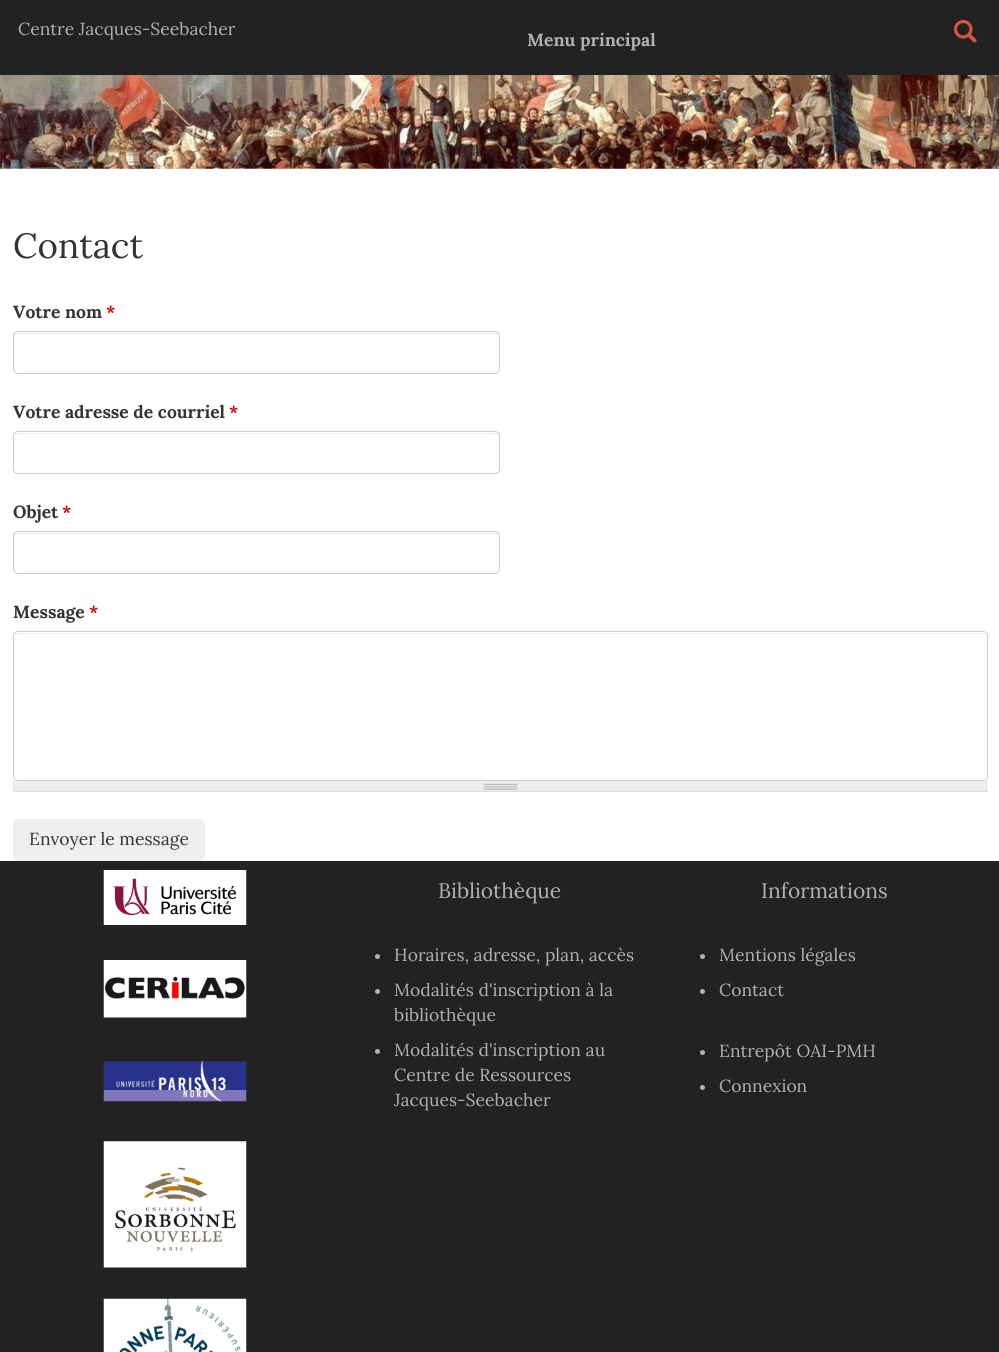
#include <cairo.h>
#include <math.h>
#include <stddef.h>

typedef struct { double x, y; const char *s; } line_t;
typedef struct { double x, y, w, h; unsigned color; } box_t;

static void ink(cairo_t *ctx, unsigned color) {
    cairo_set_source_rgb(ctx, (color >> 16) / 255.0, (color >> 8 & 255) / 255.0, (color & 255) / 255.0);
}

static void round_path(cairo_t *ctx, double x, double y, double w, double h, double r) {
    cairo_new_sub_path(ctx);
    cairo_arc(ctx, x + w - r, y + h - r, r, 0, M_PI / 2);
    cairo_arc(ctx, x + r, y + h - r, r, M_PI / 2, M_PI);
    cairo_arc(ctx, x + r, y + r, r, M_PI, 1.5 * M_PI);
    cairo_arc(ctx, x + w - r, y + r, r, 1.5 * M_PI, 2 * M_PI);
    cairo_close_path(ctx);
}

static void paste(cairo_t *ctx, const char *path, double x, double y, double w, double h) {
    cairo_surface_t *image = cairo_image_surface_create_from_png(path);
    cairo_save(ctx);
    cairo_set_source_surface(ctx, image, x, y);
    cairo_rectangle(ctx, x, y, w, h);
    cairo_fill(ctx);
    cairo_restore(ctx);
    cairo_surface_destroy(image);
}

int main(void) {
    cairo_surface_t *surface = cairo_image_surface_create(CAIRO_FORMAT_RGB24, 999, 1352);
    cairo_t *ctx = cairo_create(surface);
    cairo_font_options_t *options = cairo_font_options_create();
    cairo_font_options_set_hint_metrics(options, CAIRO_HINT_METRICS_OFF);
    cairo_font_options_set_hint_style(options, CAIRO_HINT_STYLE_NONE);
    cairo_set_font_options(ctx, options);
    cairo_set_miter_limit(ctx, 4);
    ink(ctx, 0xFFFFFF);
    cairo_paint(ctx);
    ink(ctx, 0x222222);
    cairo_rectangle(ctx, 0, 0, 999, 75);
    cairo_fill(ctx);
    cairo_select_font_face(ctx, "Lora", CAIRO_FONT_SLANT_NORMAL, CAIRO_FONT_WEIGHT_NORMAL);
    cairo_set_font_size(ctx, 17.5);
    ink(ctx, 0xB1B1B1);
    cairo_move_to(ctx, 18, 35);
    cairo_show_text(ctx, "Centre Jacques-Seebacher");
    cairo_select_font_face(ctx, "Lora", CAIRO_FONT_SLANT_NORMAL, CAIRO_FONT_WEIGHT_BOLD);
    cairo_move_to(ctx, 527, 46);
    cairo_show_text(ctx, "Menu principal");
    paste(ctx, "media/1.png", 953, 19, 24, 24);
    paste(ctx, "media/2.png", 0, 75, 999, 94);
    cairo_select_font_face(ctx, "Lora", CAIRO_FONT_SLANT_NORMAL, CAIRO_FONT_WEIGHT_NORMAL);
    cairo_set_font_size(ctx, 35);
    ink(ctx, 0x333333);
    cairo_move_to(ctx, 13, 258);
    cairo_show_text(ctx, "Contact");
    cairo_select_font_face(ctx, "Lora", CAIRO_FONT_SLANT_NORMAL, CAIRO_FONT_WEIGHT_BOLD);
    cairo_set_font_size(ctx, 17.5);
    cairo_move_to(ctx, 13, 318);
    cairo_show_text(ctx, "Votre nom");
    ink(ctx, 0xCC0000);
    cairo_move_to(ctx, 106, 318);
    cairo_show_text(ctx, "*");
    ink(ctx, 0xECECEC);
    cairo_new_path(ctx);
    cairo_move_to(ctx, 18, 334);
    cairo_line_to(ctx, 495, 334);
    cairo_curve_to(ctx, 497, 334, 499, 335, 499, 338);
    cairo_curve_to(ctx, 499, 335, 498, 333, 495, 333);
    cairo_line_to(ctx, 18, 333);
    cairo_curve_to(ctx, 15, 333, 14, 335, 14, 338);
    cairo_curve_to(ctx, 14, 335, 15, 334, 18, 334);
    cairo_close_path(ctx);
    cairo_fill(ctx);
    round_path(ctx, 13.5, 331.5, 486, 42, 4.5);
    ink(ctx, 0xCCCCCC);
    cairo_set_line_width(ctx, 1);
    cairo_stroke(ctx);
    ink(ctx, 0x333333);
    cairo_move_to(ctx, 13, 418);
    cairo_show_text(ctx, "Votre adresse de courriel");
    ink(ctx, 0xCC0000);
    cairo_move_to(ctx, 229, 418);
    cairo_show_text(ctx, "*");
    ink(ctx, 0xECECEC);
    cairo_new_path(ctx);
    cairo_move_to(ctx, 18, 434);
    cairo_line_to(ctx, 495, 434);
    cairo_curve_to(ctx, 497, 434, 499, 435, 499, 438);
    cairo_curve_to(ctx, 499, 435, 498, 433, 495, 433);
    cairo_line_to(ctx, 18, 433);
    cairo_curve_to(ctx, 15, 433, 14, 435, 14, 438);
    cairo_curve_to(ctx, 14, 435, 15, 434, 18, 434);
    cairo_close_path(ctx);
    cairo_fill(ctx);
    round_path(ctx, 13.5, 431.5, 486, 42, 4.5);
    ink(ctx, 0xCCCCCC);
    cairo_stroke(ctx);
    ink(ctx, 0x333333);
    cairo_move_to(ctx, 13, 518);
    cairo_show_text(ctx, "Objet");
    ink(ctx, 0xCC0000);
    cairo_move_to(ctx, 62, 518);
    cairo_show_text(ctx, "*");
    ink(ctx, 0xECECEC);
    cairo_new_path(ctx);
    cairo_move_to(ctx, 18, 534);
    cairo_line_to(ctx, 495, 534);
    cairo_curve_to(ctx, 497, 534, 499, 535, 499, 538);
    cairo_curve_to(ctx, 499, 535, 498, 533, 495, 533);
    cairo_line_to(ctx, 18, 533);
    cairo_curve_to(ctx, 15, 533, 14, 535, 14, 538);
    cairo_curve_to(ctx, 14, 535, 15, 534, 18, 534);
    cairo_close_path(ctx);
    cairo_fill(ctx);
    round_path(ctx, 13.5, 531.5, 486, 42, 4.5);
    ink(ctx, 0xCCCCCC);
    cairo_stroke(ctx);
    ink(ctx, 0x333333);
    cairo_move_to(ctx, 13, 618);
    cairo_show_text(ctx, "Message");
    ink(ctx, 0xCC0000);
    cairo_move_to(ctx, 89, 618);
    cairo_show_text(ctx, "*");
    ink(ctx, 0xECECEC);
    cairo_new_path(ctx);
    cairo_move_to(ctx, 18, 634);
    cairo_line_to(ctx, 982, 634);
    cairo_curve_to(ctx, 985, 634, 986, 635, 986, 638);
    cairo_curve_to(ctx, 986, 635, 985, 633, 982, 633);
    cairo_line_to(ctx, 18, 633);
    cairo_curve_to(ctx, 15, 633, 14, 635, 14, 638);
    cairo_curve_to(ctx, 14, 635, 15, 634, 18, 634);
    cairo_close_path(ctx);
    cairo_fill(ctx);
    round_path(ctx, 13.5, 631.5, 974, 149, 4.5);
    ink(ctx, 0xCCCCCC);
    cairo_stroke(ctx);
    ink(ctx, 0xEEEEEE);
    cairo_rectangle(ctx, 14, 781, 972, 10);
    cairo_fill(ctx);
    paste(ctx, "media/3.png", 483, 783, 35, 7);
    {
        static const box_t items[] = {
            {986, 781, 1, 12, 0xDDDDDD},
            {13, 791, 975, 1, 0xDDDDDD},
            {13, 781, 1, 12, 0xDDDDDD},
        };
        for (size_t i = 0; i < sizeof items / sizeof *items; i++) {
            ink(ctx, items[i].color);
            cairo_rectangle(ctx, items[i].x, items[i].y, items[i].w, items[i].h);
            cairo_fill(ctx);
        }
    }
    ink(ctx, 0xEFEFEF);
    round_path(ctx, 13, 819, 192, 42, 5);
    cairo_fill(ctx);
    cairo_select_font_face(ctx, "Lora", CAIRO_FONT_SLANT_NORMAL, CAIRO_FONT_WEIGHT_NORMAL);
    ink(ctx, 0x333333);
    cairo_move_to(ctx, 29, 845);
    cairo_show_text(ctx, "Envoyer le message");
    ink(ctx, 0x222222);
    cairo_rectangle(ctx, 0, 861, 999, 491);
    cairo_fill(ctx);
    paste(ctx, "media/4.png", 103, 870, 144, 55);
    paste(ctx, "media/5.png", 103, 960, 144, 58);
    paste(ctx, "media/6.png", 103, 1061, 144, 41);
    paste(ctx, "media/7.png", 103, 1141, 144, 127);
    paste(ctx, "media/8.png", 103, 1298, 144, 54);
    cairo_set_font_size(ctx, 21);
    ink(ctx, 0xB1B1B1);
    cairo_move_to(ctx, 438, 898);
    cairo_show_text(ctx, "Bibliothèque");
    cairo_new_path(ctx);
    cairo_arc(ctx, 377.5, 956.5, 2.5, 0, 2 * M_PI);
    cairo_fill(ctx);
    cairo_set_font_size(ctx, 17.5);
    cairo_move_to(ctx, 394, 961);
    cairo_show_text(ctx, "Horaires, adresse, plan, accès");
    cairo_new_path(ctx);
    cairo_arc(ctx, 377.5, 991.5, 2.5, 0, 2 * M_PI);
    cairo_fill(ctx);
    cairo_move_to(ctx, 394, 996);
    cairo_show_text(ctx, "Modalités d'inscription à la");
    cairo_move_to(ctx, 394, 1021);
    cairo_show_text(ctx, "bibliothèque");
    cairo_new_path(ctx);
    cairo_arc(ctx, 377.5, 1051.5, 2.5, 0, 2 * M_PI);
    cairo_fill(ctx);
    {
        static const line_t items[] = {
            {394, 1056, "Modalités d'inscription au"},
            {394, 1081, "Centre de Ressources"},
            {394, 1106, "Jacques-Seebacher"},
        };
        for (size_t i = 0; i < sizeof items / sizeof *items; i++) {
            cairo_move_to(ctx, items[i].x, items[i].y);
            cairo_show_text(ctx, items[i].s);
        }
    }
    cairo_set_font_size(ctx, 21);
    cairo_move_to(ctx, 761, 898);
    cairo_show_text(ctx, "Informations");
    cairo_new_path(ctx);
    cairo_arc(ctx, 702.5, 956.5, 2.5, 0, 2 * M_PI);
    cairo_fill(ctx);
    cairo_set_font_size(ctx, 17.5);
    cairo_move_to(ctx, 719, 961);
    cairo_show_text(ctx, "Mentions légales");
    cairo_new_path(ctx);
    cairo_arc(ctx, 702.5, 991.5, 2.5, 0, 2 * M_PI);
    cairo_fill(ctx);
    cairo_move_to(ctx, 719, 996);
    cairo_show_text(ctx, "Contact");
    cairo_new_path(ctx);
    cairo_arc(ctx, 702.5, 1052.5, 2.5, 0, 2 * M_PI);
    cairo_fill(ctx);
    cairo_move_to(ctx, 719, 1057);
    cairo_show_text(ctx, "Entrepôt OAI-PMH");
    cairo_new_path(ctx);
    cairo_arc(ctx, 702.5, 1087.5, 2.5, 0, 2 * M_PI);
    cairo_fill(ctx);
    cairo_move_to(ctx, 719, 1092);
    cairo_show_text(ctx, "Connexion");
    cairo_surface_write_to_png(surface, "image.png");
    cairo_font_options_destroy(options);
    cairo_destroy(ctx);
    cairo_surface_destroy(surface);
    return 0;
}
